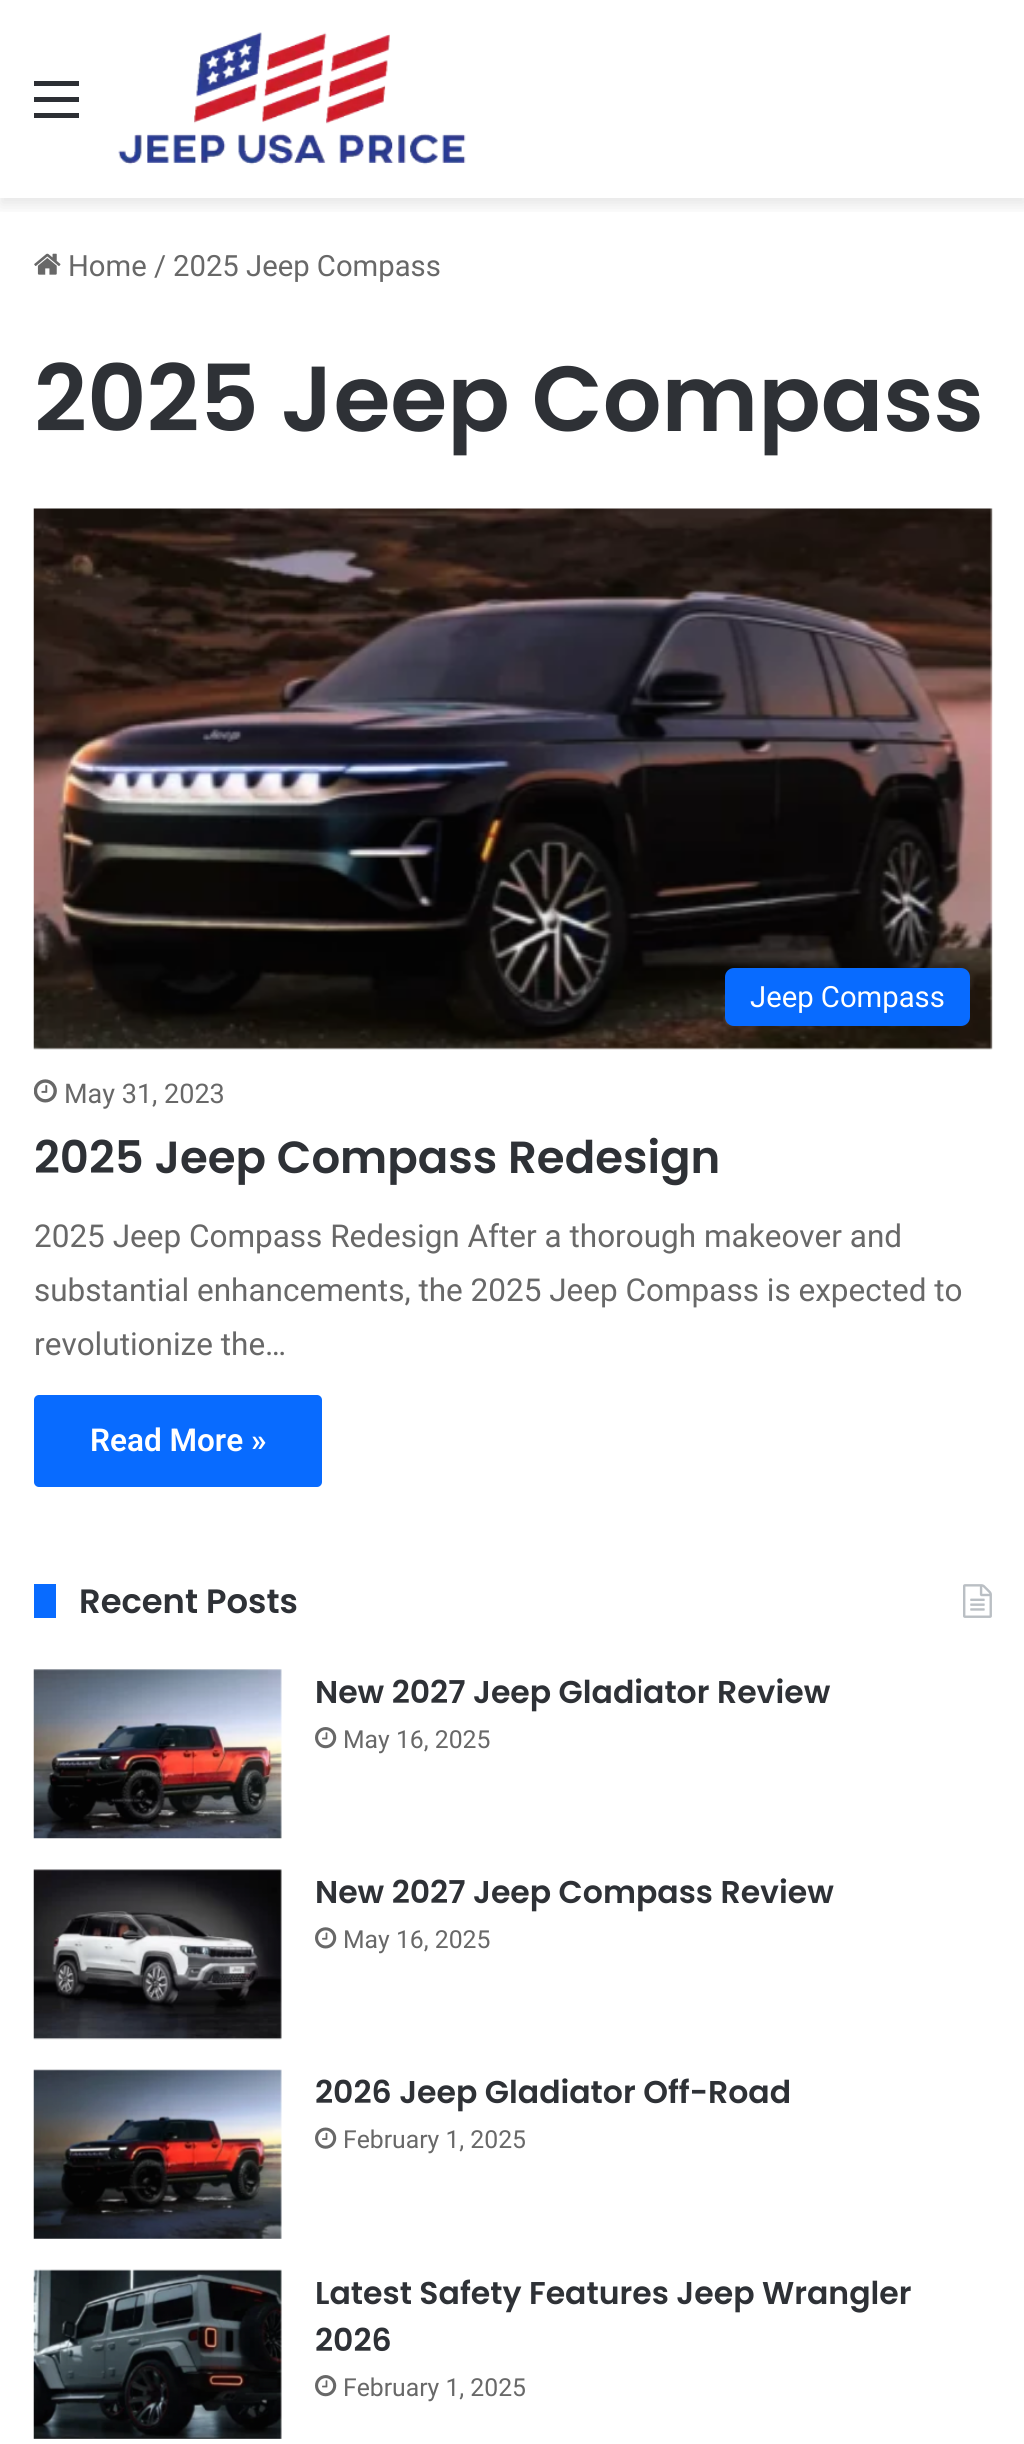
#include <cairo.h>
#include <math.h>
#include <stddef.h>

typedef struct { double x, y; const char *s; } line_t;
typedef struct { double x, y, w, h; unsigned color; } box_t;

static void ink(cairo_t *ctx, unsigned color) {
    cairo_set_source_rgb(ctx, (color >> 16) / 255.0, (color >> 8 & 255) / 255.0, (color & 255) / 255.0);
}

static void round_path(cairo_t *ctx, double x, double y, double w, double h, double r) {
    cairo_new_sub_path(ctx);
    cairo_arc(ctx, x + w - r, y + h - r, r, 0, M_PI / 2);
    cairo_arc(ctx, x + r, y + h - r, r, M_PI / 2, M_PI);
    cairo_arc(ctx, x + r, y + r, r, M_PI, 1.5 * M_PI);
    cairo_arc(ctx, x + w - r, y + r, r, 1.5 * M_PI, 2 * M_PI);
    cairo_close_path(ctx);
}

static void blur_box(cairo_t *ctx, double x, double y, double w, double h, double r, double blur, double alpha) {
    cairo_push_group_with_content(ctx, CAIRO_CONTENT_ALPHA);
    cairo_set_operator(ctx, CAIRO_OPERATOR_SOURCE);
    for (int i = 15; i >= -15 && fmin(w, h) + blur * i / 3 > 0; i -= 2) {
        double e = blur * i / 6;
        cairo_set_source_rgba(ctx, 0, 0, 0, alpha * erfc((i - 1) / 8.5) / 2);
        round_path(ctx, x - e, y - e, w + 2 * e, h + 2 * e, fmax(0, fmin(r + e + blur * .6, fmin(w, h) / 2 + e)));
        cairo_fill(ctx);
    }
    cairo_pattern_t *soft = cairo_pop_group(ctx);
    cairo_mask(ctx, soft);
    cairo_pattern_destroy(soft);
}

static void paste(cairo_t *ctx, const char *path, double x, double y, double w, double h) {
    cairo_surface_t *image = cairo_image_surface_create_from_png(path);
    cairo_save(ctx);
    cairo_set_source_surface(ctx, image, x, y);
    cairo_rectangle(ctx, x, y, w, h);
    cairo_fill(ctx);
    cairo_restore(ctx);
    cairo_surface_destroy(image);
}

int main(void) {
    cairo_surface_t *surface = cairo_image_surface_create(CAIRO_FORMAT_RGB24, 1024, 2444);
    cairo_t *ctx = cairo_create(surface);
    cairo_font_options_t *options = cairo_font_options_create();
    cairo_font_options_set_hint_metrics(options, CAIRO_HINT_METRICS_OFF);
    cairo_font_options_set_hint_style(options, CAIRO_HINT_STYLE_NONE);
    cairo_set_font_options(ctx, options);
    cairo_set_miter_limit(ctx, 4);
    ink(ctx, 0xFFFFFF);
    cairo_paint(ctx);
    cairo_save(ctx);
    cairo_rectangle(ctx, 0, 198, 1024, 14);
    cairo_clip(ctx);
    ink(ctx, 0x000000);
    blur_box(ctx, 0, 7, 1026, 198, 0, 8, 0.1);
    cairo_restore(ctx);
    {
        static const box_t items[] = {
            {34, 97, 45, 5, 0x2C2F34},
            {34, 81, 45, 5, 0x2C2F34},
            {34, 113, 45, 5, 0x2C2F34},
        };
        for (size_t i = 0; i < sizeof items / sizeof *items; i++) {
            ink(ctx, items[i].color);
            cairo_rectangle(ctx, items[i].x, items[i].y, items[i].w, items[i].h);
            cairo_fill(ctx);
        }
    }
    paste(ctx, "media/1.png", 118, 32, 348, 133);
    paste(ctx, "media/2.png", 34, 253, 27, 22);
    cairo_select_font_face(ctx, "Roboto", CAIRO_FONT_SLANT_NORMAL, CAIRO_FONT_WEIGHT_NORMAL);
    cairo_set_font_size(ctx, 29.25);
    ink(ctx, 0x686868);
    {
        static const line_t items[] = {
            {68, 276, "Home"},
            {154, 276, "/"},
            {173, 276, "2025 Jeep Compass"},
        };
        for (size_t i = 0; i < sizeof items / sizeof *items; i++) {
            cairo_move_to(ctx, items[i].x, items[i].y);
            cairo_show_text(ctx, items[i].s);
        }
    }
    cairo_select_font_face(ctx, "Poppins SemiBold", CAIRO_FONT_SLANT_NORMAL, CAIRO_FONT_WEIGHT_NORMAL);
    cairo_set_font_size(ctx, 92.25);
    ink(ctx, 0x2E3136);
    cairo_move_to(ctx, 34, 431);
    cairo_show_text(ctx, "2025 Jeep Compass");
    paste(ctx, "media/3.png", 33, 508, 960, 542);
    ink(ctx, 0x086BFF);
    round_path(ctx, 725, 968, 245, 58, 9);
    cairo_fill(ctx);
    cairo_select_font_face(ctx, "Roboto", CAIRO_FONT_SLANT_NORMAL, CAIRO_FONT_WEIGHT_NORMAL);
    cairo_set_font_size(ctx, 29.25);
    ink(ctx, 0xFFFFFF);
    cairo_move_to(ctx, 750, 1007);
    cairo_show_text(ctx, "Jeep Compass");
    paste(ctx, "media/4.png", 34, 1079, 23, 24);
    cairo_set_font_size(ctx, 27);
    ink(ctx, 0x686868);
    cairo_move_to(ctx, 64, 1103);
    cairo_show_text(ctx, "May 31, 2023");
    cairo_select_font_face(ctx, "Poppins SemiBold", CAIRO_FONT_SLANT_NORMAL, CAIRO_FONT_WEIGHT_NORMAL);
    cairo_set_font_size(ctx, 45);
    ink(ctx, 0x2E3136);
    cairo_move_to(ctx, 34, 1173);
    cairo_show_text(ctx, "2025 Jeep Compass Redesign");
    cairo_select_font_face(ctx, "Roboto", CAIRO_FONT_SLANT_NORMAL, CAIRO_FONT_WEIGHT_NORMAL);
    cairo_set_font_size(ctx, 31.5);
    ink(ctx, 0x686868);
    {
        static const line_t items[] = {
            {34, 1247, "2025 Jeep Compass Redesign After a thorough makeover and"},
            {34, 1301, "substantial enhancements, the 2025 Jeep Compass is expected to"},
            {34, 1355, "revolutionize the…"},
        };
        for (size_t i = 0; i < sizeof items / sizeof *items; i++) {
            cairo_move_to(ctx, items[i].x, items[i].y);
            cairo_show_text(ctx, items[i].s);
        }
    }
    ink(ctx, 0x086BFF);
    round_path(ctx, 34, 1395, 288, 92, 5);
    cairo_fill(ctx);
    cairo_select_font_face(ctx, "Roboto SemiBold", CAIRO_FONT_SLANT_NORMAL, CAIRO_FONT_WEIGHT_NORMAL);
    ink(ctx, 0xFFFFFF);
    cairo_move_to(ctx, 90, 1451);
    cairo_show_text(ctx, "Read More »");
    ink(ctx, 0x086BFF);
    cairo_rectangle(ctx, 34, 1584, 22, 34);
    cairo_fill(ctx);
    cairo_select_font_face(ctx, "Poppins SemiBold", CAIRO_FONT_SLANT_NORMAL, CAIRO_FONT_WEIGHT_NORMAL);
    cairo_set_font_size(ctx, 33.75);
    ink(ctx, 0x2E3136);
    cairo_move_to(ctx, 79, 1613);
    cairo_show_text(ctx, "Recent Posts");
    paste(ctx, "media/5.png", 963, 1584, 29, 34);
    paste(ctx, "media/6.png", 33, 1669, 249, 170);
    cairo_set_font_size(ctx, 31.5);
    cairo_move_to(ctx, 315, 1703);
    cairo_show_text(ctx, "New 2027 Jeep Gladiator Review");
    paste(ctx, "media/7.png", 315, 1727, 22, 22);
    cairo_select_font_face(ctx, "Roboto", CAIRO_FONT_SLANT_NORMAL, CAIRO_FONT_WEIGHT_NORMAL);
    cairo_set_font_size(ctx, 24.75);
    ink(ctx, 0x686868);
    cairo_move_to(ctx, 343, 1748);
    cairo_show_text(ctx, "May 16, 2025");
    paste(ctx, "media/8.png", 33, 1869, 249, 171);
    cairo_select_font_face(ctx, "Poppins SemiBold", CAIRO_FONT_SLANT_NORMAL, CAIRO_FONT_WEIGHT_NORMAL);
    cairo_set_font_size(ctx, 31.5);
    ink(ctx, 0x2E3136);
    cairo_move_to(ctx, 315, 1903);
    cairo_show_text(ctx, "New 2027 Jeep Compass Review");
    paste(ctx, "media/9.png", 315, 1927, 22, 22);
    cairo_select_font_face(ctx, "Roboto", CAIRO_FONT_SLANT_NORMAL, CAIRO_FONT_WEIGHT_NORMAL);
    cairo_set_font_size(ctx, 24.75);
    ink(ctx, 0x686868);
    cairo_move_to(ctx, 343, 1948);
    cairo_show_text(ctx, "May 16, 2025");
    paste(ctx, "media/10.png", 33, 2069, 249, 170);
    cairo_select_font_face(ctx, "Poppins SemiBold", CAIRO_FONT_SLANT_NORMAL, CAIRO_FONT_WEIGHT_NORMAL);
    cairo_set_font_size(ctx, 31.5);
    ink(ctx, 0x2E3136);
    cairo_move_to(ctx, 315, 2103);
    cairo_show_text(ctx, "2026 Jeep Gladiator Off-Road");
    paste(ctx, "media/11.png", 315, 2127, 22, 22);
    cairo_select_font_face(ctx, "Roboto", CAIRO_FONT_SLANT_NORMAL, CAIRO_FONT_WEIGHT_NORMAL);
    cairo_set_font_size(ctx, 24.75);
    ink(ctx, 0x686868);
    cairo_move_to(ctx, 343, 2148);
    cairo_show_text(ctx, "February 1, 2025");
    paste(ctx, "media/12.png", 33, 2269, 249, 170);
    cairo_select_font_face(ctx, "Poppins SemiBold", CAIRO_FONT_SLANT_NORMAL, CAIRO_FONT_WEIGHT_NORMAL);
    cairo_set_font_size(ctx, 31.5);
    ink(ctx, 0x2E3136);
    cairo_move_to(ctx, 315, 2304);
    cairo_show_text(ctx, "Latest Safety Features Jeep Wrangler");
    cairo_move_to(ctx, 315, 2351);
    cairo_show_text(ctx, "2026");
    paste(ctx, "media/7.png", 315, 2375, 22, 22);
    cairo_select_font_face(ctx, "Roboto", CAIRO_FONT_SLANT_NORMAL, CAIRO_FONT_WEIGHT_NORMAL);
    cairo_set_font_size(ctx, 24.75);
    ink(ctx, 0x686868);
    cairo_move_to(ctx, 343, 2396);
    cairo_show_text(ctx, "February 1, 2025");
    cairo_surface_write_to_png(surface, "image.png");
    cairo_font_options_destroy(options);
    cairo_destroy(ctx);
    cairo_surface_destroy(surface);
    return 0;
}
